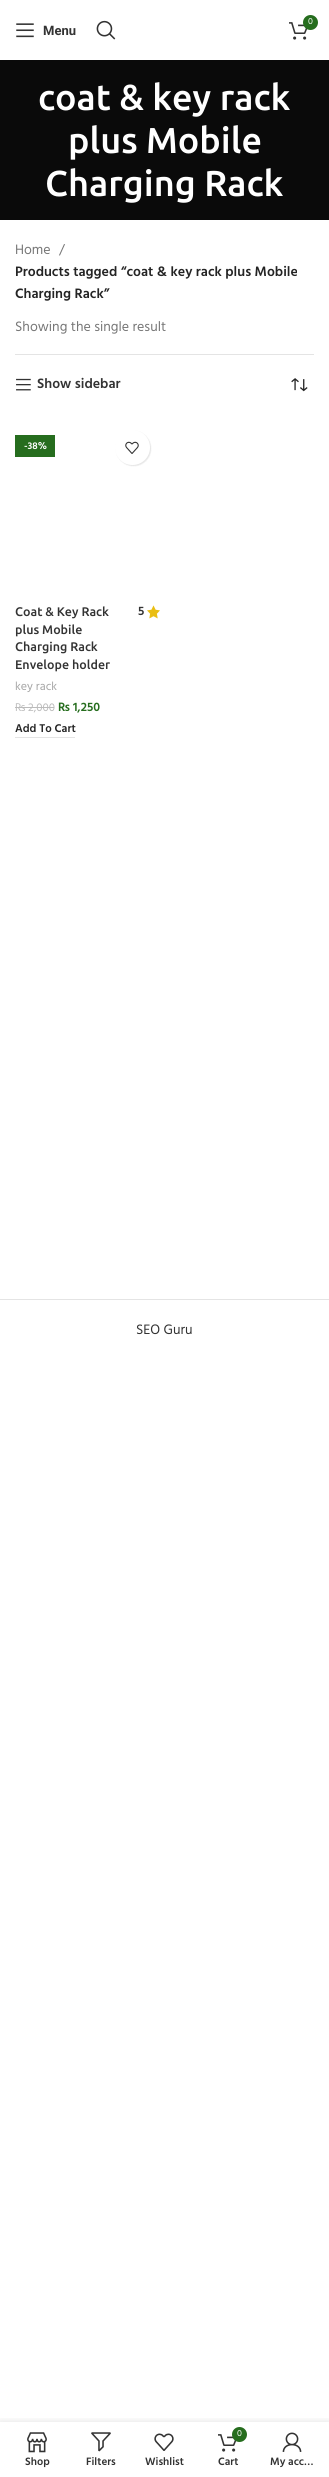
#include <cairo.h>
#include <math.h>
#include <stddef.h>

typedef struct { double x, y; const char *s; } line_t;

static void ink(cairo_t *ctx, unsigned color) {
    cairo_set_source_rgb(ctx, (color >> 16) / 255.0, (color >> 8 & 255) / 255.0, (color & 255) / 255.0);
}

static void round_path(cairo_t *ctx, double x, double y, double w, double h, double r) {
    cairo_new_sub_path(ctx);
    cairo_arc(ctx, x + w - r, y + h - r, r, 0, M_PI / 2);
    cairo_arc(ctx, x + r, y + h - r, r, M_PI / 2, M_PI);
    cairo_arc(ctx, x + r, y + r, r, M_PI, 1.5 * M_PI);
    cairo_arc(ctx, x + w - r, y + r, r, 1.5 * M_PI, 2 * M_PI);
    cairo_close_path(ctx);
}

static void blur_box(cairo_t *ctx, double x, double y, double w, double h, double r, double blur, double alpha) {
    cairo_push_group_with_content(ctx, CAIRO_CONTENT_ALPHA);
    cairo_set_operator(ctx, CAIRO_OPERATOR_SOURCE);
    for (int i = 15; i >= -15 && fmin(w, h) + blur * i / 3 > 0; i -= 2) {
        double e = blur * i / 6;
        cairo_set_source_rgba(ctx, 0, 0, 0, alpha * erfc((i - 1) / 8.5) / 2);
        round_path(ctx, x - e, y - e, w + 2 * e, h + 2 * e, fmax(0, fmin(r + e + blur * .6, fmin(w, h) / 2 + e)));
        cairo_fill(ctx);
    }
    cairo_pattern_t *soft = cairo_pop_group(ctx);
    cairo_mask(ctx, soft);
    cairo_pattern_destroy(soft);
}

static void paste(cairo_t *ctx, const char *path, double x, double y, double w, double h) {
    cairo_surface_t *image = cairo_image_surface_create_from_png(path);
    cairo_save(ctx);
    cairo_set_source_surface(ctx, image, x, y);
    cairo_rectangle(ctx, x, y, w, h);
    cairo_fill(ctx);
    cairo_restore(ctx);
    cairo_surface_destroy(image);
}

int main(void) {
    cairo_surface_t *surface = cairo_image_surface_create(CAIRO_FORMAT_RGB24, 329, 2477);
    cairo_t *ctx = cairo_create(surface);
    cairo_font_options_t *options = cairo_font_options_create();
    cairo_font_options_set_hint_metrics(options, CAIRO_HINT_METRICS_OFF);
    cairo_font_options_set_hint_style(options, CAIRO_HINT_STYLE_NONE);
    cairo_set_font_options(ctx, options);
    cairo_set_miter_limit(ctx, 4);
    ink(ctx, 0xFFFFFF);
    cairo_paint(ctx);
    paste(ctx, "media/1.png", 289, 22, 19, 18);
    ink(ctx, 0x266D1E);
    cairo_arc(ctx, 310.5, 22.5, 7.5, 0, 2 * M_PI);
    cairo_fill(ctx);
    cairo_select_font_face(ctx, "Hind", CAIRO_FONT_SLANT_NORMAL, CAIRO_FONT_WEIGHT_NORMAL);
    cairo_set_font_size(ctx, 9);
    ink(ctx, 0xFFFFFF);
    cairo_move_to(ctx, 308, 24);
    cairo_show_text(ctx, "0");
    paste(ctx, "media/2.png", 16, 23, 18, 15);
    cairo_select_font_face(ctx, "Roboto", CAIRO_FONT_SLANT_NORMAL, CAIRO_FONT_WEIGHT_BOLD);
    cairo_set_font_size(ctx, 13);
    ink(ctx, 0x333333);
    cairo_move_to(ctx, 43, 35);
    cairo_show_text(ctx, "Menu");
    paste(ctx, "media/3.png", 96, 20, 20, 20);
    ink(ctx, 0x0A0A0A);
    cairo_rectangle(ctx, 0, 60, 329, 160);
    cairo_fill(ctx);
    cairo_select_font_face(ctx, "Ubuntu Medium", CAIRO_FONT_SLANT_NORMAL, CAIRO_FONT_WEIGHT_NORMAL);
    cairo_set_font_size(ctx, 36);
    ink(ctx, 0xFFFFFF);
    {
        static const line_t items[] = {
            {38, 110, "coat & key rack"},
            {68, 153, "plus Mobile"},
            {45, 196, "Charging Rack"},
        };
        for (size_t i = 0; i < sizeof items / sizeof *items; i++) {
            cairo_move_to(ctx, items[i].x, items[i].y);
            cairo_show_text(ctx, items[i].s);
        }
    }
    ink(ctx, 0xE4E4E4);
    cairo_rectangle(ctx, 15, 354, 299, 1);
    cairo_fill(ctx);
    cairo_select_font_face(ctx, "Hind", CAIRO_FONT_SLANT_NORMAL, CAIRO_FONT_WEIGHT_NORMAL);
    cairo_set_font_size(ctx, 14);
    ink(ctx, 0x767676);
    cairo_move_to(ctx, 15, 254);
    cairo_show_text(ctx, "Home");
    cairo_move_to(ctx, 59, 254);
    cairo_show_text(ctx, "/");
    cairo_select_font_face(ctx, "Hind SemiBold", CAIRO_FONT_SLANT_NORMAL, CAIRO_FONT_WEIGHT_NORMAL);
    ink(ctx, 0x242424);
    cairo_move_to(ctx, 15, 276);
    cairo_show_text(ctx, "Products tagged “coat & key rack plus Mobile");
    cairo_move_to(ctx, 15, 298);
    cairo_show_text(ctx, "Charging Rack”");
    cairo_select_font_face(ctx, "Hind", CAIRO_FONT_SLANT_NORMAL, CAIRO_FONT_WEIGHT_NORMAL);
    ink(ctx, 0x767676);
    cairo_move_to(ctx, 15, 331);
    cairo_show_text(ctx, "Showing the single result");
    paste(ctx, "media/4.png", 16, 378, 15, 13);
    cairo_select_font_face(ctx, "Hind SemiBold", CAIRO_FONT_SLANT_NORMAL, CAIRO_FONT_WEIGHT_NORMAL);
    ink(ctx, 0x333333);
    cairo_move_to(ctx, 37, 388);
    cairo_show_text(ctx, "Show sidebar");
    paste(ctx, "media/5.png", 291, 378, 17, 14);
    ink(ctx, 0x266D1E);
    cairo_rectangle(ctx, 15, 435, 40, 22);
    cairo_fill(ctx);
    cairo_set_font_size(ctx, 10);
    ink(ctx, 0xFFFFFF);
    cairo_move_to(ctx, 24, 449);
    cairo_show_text(ctx, "-38%");
    ink(ctx, 0x000000);
    blur_box(ctx, 116, 431, 35, 35, 17.5, 0.5, 0.1);
    ink(ctx, 0xFFFFFF);
    cairo_arc(ctx, 132.5, 447.5, 17.5, 0, 2 * M_PI);
    cairo_fill(ctx);
    paste(ctx, "media/6.png", 125, 441, 14, 13);
    cairo_select_font_face(ctx, "Ubuntu Medium", CAIRO_FONT_SLANT_NORMAL, CAIRO_FONT_WEIGHT_NORMAL);
    cairo_set_font_size(ctx, 12.5);
    ink(ctx, 0x333333);
    {
        static const line_t items[] = {
            {15, 616, "Coat & Key Rack"},
            {15, 634, "plus Mobile"},
            {15, 651, "Charging Rack"},
            {15, 669, "Envelope holder"},
        };
        for (size_t i = 0; i < sizeof items / sizeof *items; i++) {
            cairo_move_to(ctx, items[i].x, items[i].y);
            cairo_show_text(ctx, items[i].s);
        }
    }
    cairo_select_font_face(ctx, "Hind SemiBold", CAIRO_FONT_SLANT_NORMAL, CAIRO_FONT_WEIGHT_NORMAL);
    cairo_move_to(ctx, 138, 615);
    cairo_show_text(ctx, "5");
    paste(ctx, "media/7.png", 147, 605, 13, 14);
    cairo_select_font_face(ctx, "Hind", CAIRO_FONT_SLANT_NORMAL, CAIRO_FONT_WEIGHT_NORMAL);
    cairo_set_font_size(ctx, 12);
    ink(ctx, 0xA5A5A5);
    cairo_move_to(ctx, 15, 690);
    cairo_show_text(ctx, "key rack");
    cairo_set_font_size(ctx, 11.5);
    ink(ctx, 0xBBBBBB);
    cairo_move_to(ctx, 15, 711);
    cairo_show_text(ctx, "₨ 2,000");
    cairo_rectangle(ctx, 15, 707, 39, 1);
    cairo_fill(ctx);
    cairo_select_font_face(ctx, "Hind SemiBold", CAIRO_FONT_SLANT_NORMAL, CAIRO_FONT_WEIGHT_NORMAL);
    cairo_set_font_size(ctx, 12.5);
    ink(ctx, 0x266D1E);
    cairo_move_to(ctx, 58, 711);
    cairo_show_text(ctx, "₨ 1,250");
    ink(ctx, 0xE4E4E4);
    cairo_rectangle(ctx, 15, 737, 60, 1);
    cairo_fill(ctx);
    cairo_set_font_size(ctx, 11.5);
    ink(ctx, 0x242424);
    cairo_move_to(ctx, 15, 732);
    cairo_show_text(ctx, "Add To Cart");
    ink(ctx, 0xE4E4E4);
    cairo_rectangle(ctx, 0, 1299, 329, 1);
    cairo_fill(ctx);
    cairo_select_font_face(ctx, "Hind", CAIRO_FONT_SLANT_NORMAL, CAIRO_FONT_WEIGHT_NORMAL);
    cairo_set_font_size(ctx, 14);
    ink(ctx, 0x333333);
    cairo_move_to(ctx, 136, 1334);
    cairo_show_text(ctx, "SEO Guru");
    cairo_save(ctx);
    cairo_rectangle(ctx, 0, 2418, 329, 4);
    cairo_clip(ctx);
    ink(ctx, 0x000000);
    blur_box(ctx, 0, 2422, 329, 55, 0, 4.5, 0.12);
    cairo_restore(ctx);
    paste(ctx, "media/8.png", 27, 2432, 20, 21);
    cairo_select_font_face(ctx, "Hind SemiBold", CAIRO_FONT_SLANT_NORMAL, CAIRO_FONT_WEIGHT_NORMAL);
    cairo_set_font_size(ctx, 11);
    cairo_move_to(ctx, 25, 2465);
    cairo_show_text(ctx, "Shop");
    paste(ctx, "media/9.png", 91, 2432, 20, 20);
    cairo_move_to(ctx, 86, 2465);
    cairo_show_text(ctx, "Filters");
    paste(ctx, "media/10.png", 154, 2433, 20, 18);
    cairo_move_to(ctx, 145, 2465);
    cairo_show_text(ctx, "Wishlist");
    paste(ctx, "media/1.png", 218, 2434, 19, 18);
    ink(ctx, 0x266D1E);
    cairo_arc(ctx, 239.5, 2434.5, 7.5, 0, 2 * M_PI);
    cairo_fill(ctx);
    cairo_select_font_face(ctx, "Hind", CAIRO_FONT_SLANT_NORMAL, CAIRO_FONT_WEIGHT_NORMAL);
    cairo_set_font_size(ctx, 9);
    ink(ctx, 0xFFFFFF);
    cairo_move_to(ctx, 237, 2436);
    cairo_show_text(ctx, "0");
    cairo_select_font_face(ctx, "Hind SemiBold", CAIRO_FONT_SLANT_NORMAL, CAIRO_FONT_WEIGHT_NORMAL);
    cairo_set_font_size(ctx, 11);
    ink(ctx, 0x333333);
    cairo_move_to(ctx, 218, 2465);
    cairo_show_text(ctx, "Cart");
    paste(ctx, "media/11.png", 282, 2432, 20, 20);
    cairo_move_to(ctx, 270, 2465);
    cairo_show_text(ctx, "My acc…");
    cairo_surface_write_to_png(surface, "image.png");
    cairo_font_options_destroy(options);
    cairo_destroy(ctx);
    cairo_surface_destroy(surface);
    return 0;
}
